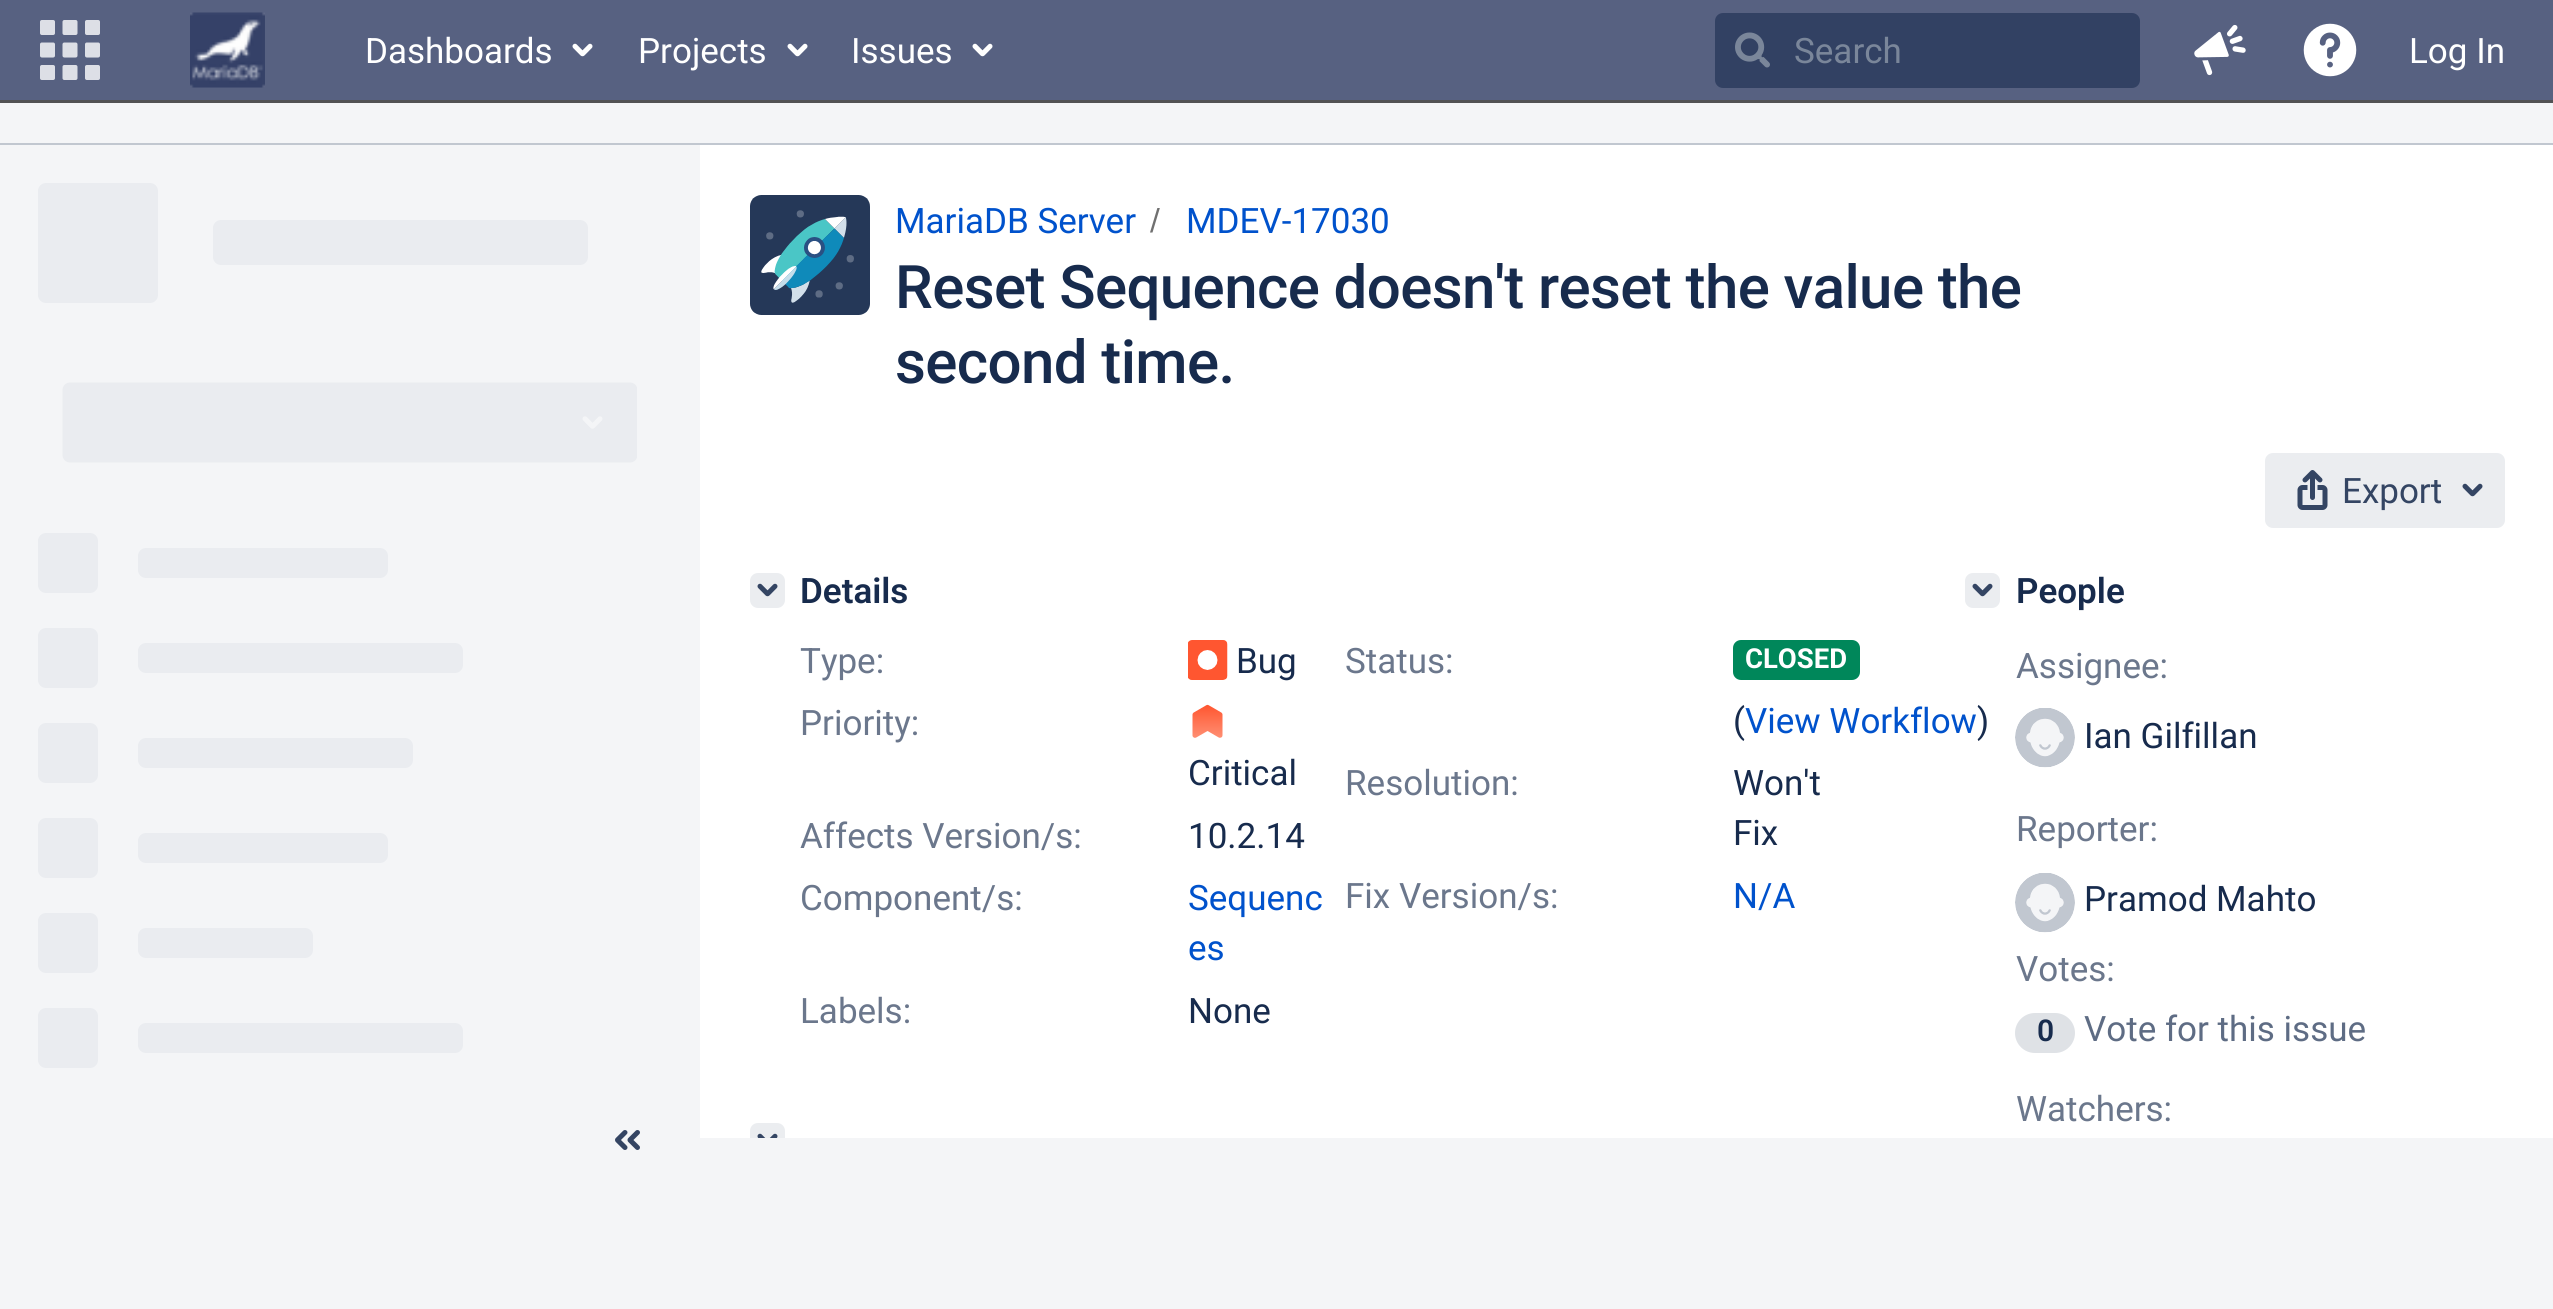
#include <cairo.h>
#include <math.h>
#include <stddef.h>


static void ink(cairo_t *ctx, unsigned color) {
    cairo_set_source_rgb(ctx, (color >> 16) / 255.0, (color >> 8 & 255) / 255.0, (color & 255) / 255.0);
}

static void write_spaced(cairo_t *ctx, double x, double y, const char *s, double letter, double word) {
    cairo_move_to(ctx, x, y);
    while (*s) {
        char ch[5] = {0};
        int n = 0;
        do ch[n++] = *s++; while ((*s & 0xC0) == 0x80);
        cairo_show_text(ctx, ch);
        cairo_rel_move_to(ctx, letter + word * (*ch == ' '), 0);
    }
}

static void round_path(cairo_t *ctx, double x, double y, double w, double h, double r) {
    cairo_new_sub_path(ctx);
    cairo_arc(ctx, x + w - r, y + h - r, r, 0, M_PI / 2);
    cairo_arc(ctx, x + r, y + h - r, r, M_PI / 2, M_PI);
    cairo_arc(ctx, x + r, y + r, r, M_PI, 1.5 * M_PI);
    cairo_arc(ctx, x + w - r, y + r, r, 1.5 * M_PI, 2 * M_PI);
    cairo_close_path(ctx);
}

static void paste(cairo_t *ctx, const char *path, double x, double y, double w, double h) {
    cairo_surface_t *image = cairo_image_surface_create_from_png(path);
    cairo_save(ctx);
    cairo_set_source_surface(ctx, image, x, y);
    cairo_rectangle(ctx, x, y, w, h);
    cairo_fill(ctx);
    cairo_restore(ctx);
    cairo_surface_destroy(image);
}

int main(void) {
    cairo_surface_t *surface = cairo_image_surface_create(CAIRO_FORMAT_RGB24, 2553, 1309);
    cairo_t *ctx = cairo_create(surface);
    cairo_font_options_t *options = cairo_font_options_create();
    cairo_font_options_set_hint_metrics(options, CAIRO_HINT_METRICS_OFF);
    cairo_font_options_set_hint_style(options, CAIRO_HINT_STYLE_NONE);
    cairo_set_font_options(ctx, options);
    cairo_set_miter_limit(ctx, 4);
    ink(ctx, 0xF4F5F7);
    cairo_paint(ctx);
    ink(ctx, 0x576181);
    cairo_rectangle(ctx, 0, 0, 2553, 100);
    cairo_fill(ctx);
    ink(ctx, 0x525254);
    cairo_rectangle(ctx, 0, 100, 2553, 3);
    cairo_fill(ctx);
    paste(ctx, "media/1.png", 40, 20, 60, 60);
    paste(ctx, "media/2.png", 190, 12, 75, 76);
    cairo_select_font_face(ctx, "Roboto", CAIRO_FONT_SLANT_NORMAL, CAIRO_FONT_WEIGHT_NORMAL);
    cairo_set_font_size(ctx, 35);
    ink(ctx, 0xFFFFFF);
    cairo_move_to(ctx, 365, 63);
    cairo_show_text(ctx, "Dashboards");
    paste(ctx, "media/3.png", 572, 43, 21, 14);
    cairo_move_to(ctx, 638, 63);
    cairo_show_text(ctx, "Projects");
    paste(ctx, "media/3.png", 787, 43, 21, 14);
    cairo_move_to(ctx, 851, 63);
    cairo_show_text(ctx, "Issues");
    paste(ctx, "media/3.png", 972, 43, 21, 14);
    ink(ctx, 0x324163);
    round_path(ctx, 1715, 13, 425, 75, 8);
    cairo_fill(ctx);
    paste(ctx, "media/4.png", 1735, 32, 35, 36);
    ink(ctx, 0x7A869A);
    cairo_move_to(ctx, 1794, 63);
    cairo_show_text(ctx, "Search");
    paste(ctx, "media/5.png", 2194, 24, 52, 52);
    paste(ctx, "media/6.png", 2303, 23, 54, 54);
    ink(ctx, 0xFFFFFF);
    cairo_move_to(ctx, 2409, 63);
    cairo_show_text(ctx, "Log In");
    ink(ctx, 0xC1C7D0);
    cairo_rectangle(ctx, 0, 143, 2553, 2);
    cairo_fill(ctx);
    paste(ctx, "media/7.png", 38, 183, 599, 885);
    paste(ctx, "media/8.png", 615, 1130, 25, 20);
    ink(ctx, 0xFFFFFF);
    cairo_rectangle(ctx, 700, 145, 1853, 993);
    cairo_fill(ctx);
    paste(ctx, "media/9.png", 750, 195, 120, 120);
    ink(ctx, 0x0052CC);
    cairo_move_to(ctx, 895, 233);
    cairo_show_text(ctx, "MariaDB Server");
    cairo_save(ctx);
    cairo_rectangle(ctx, 1150, 208, 10, 25);
    cairo_clip(ctx);
    ink(ctx, 0x707070);
    cairo_new_path(ctx);
    cairo_move_to(ctx, 1152.5, 232.5);
    cairo_line_to(ctx, 1160, 207.5);
    cairo_line_to(ctx, 1157.5, 207.5);
    cairo_line_to(ctx, 1150, 232.5);
    cairo_close_path(ctx);
    cairo_fill(ctx);
    cairo_restore(ctx);
    cairo_move_to(ctx, 1186, 233);
    cairo_show_text(ctx, "MDEV-17030");
    cairo_select_font_face(ctx, "Roboto Medium", CAIRO_FONT_SLANT_NORMAL, CAIRO_FONT_WEIGHT_NORMAL);
    cairo_set_font_size(ctx, 60);
    ink(ctx, 0x172B4D);
    write_spaced(ctx, 895, 308, "Reset Sequence doesn't reset the value the", -0.6, 0);
    write_spaced(ctx, 895, 383, "second time.", -0.6, 0);
    ink(ctx, 0xEBEDF0);
    round_path(ctx, 2265, 453, 240, 75, 8);
    cairo_fill(ctx);
    paste(ctx, "media/10.png", 2297, 470, 31, 40);
    cairo_select_font_face(ctx, "Roboto", CAIRO_FONT_SLANT_NORMAL, CAIRO_FONT_WEIGHT_NORMAL);
    cairo_set_font_size(ctx, 35);
    ink(ctx, 0x344563);
    cairo_move_to(ctx, 2342, 503);
    cairo_show_text(ctx, "Export");
    paste(ctx, "media/11.png", 2462, 483, 21, 14);
    ink(ctx, 0xEBEDF0);
    round_path(ctx, 750, 573, 35, 35, 8);
    cairo_fill(ctx);
    paste(ctx, "media/12.png", 757, 583, 21, 14);
    cairo_select_font_face(ctx, "Roboto SemiBold", CAIRO_FONT_SLANT_NORMAL, CAIRO_FONT_WEIGHT_NORMAL);
    ink(ctx, 0x172B4D);
    cairo_move_to(ctx, 800, 603);
    cairo_show_text(ctx, "Details");
    cairo_select_font_face(ctx, "Roboto", CAIRO_FONT_SLANT_NORMAL, CAIRO_FONT_WEIGHT_NORMAL);
    ink(ctx, 0x6B778C);
    cairo_move_to(ctx, 800, 673);
    cairo_show_text(ctx, "Type:");
    paste(ctx, "media/13.png", 1188, 640, 40, 40);
    ink(ctx, 0x172B4D);
    cairo_move_to(ctx, 1236, 673);
    cairo_show_text(ctx, "Bug");
    ink(ctx, 0x6B778C);
    cairo_move_to(ctx, 1345, 673);
    cairo_show_text(ctx, "Status:");
    ink(ctx, 0x00875A);
    round_path(ctx, 1733, 640, 127, 40, 8);
    cairo_fill(ctx);
    cairo_select_font_face(ctx, "Roboto", CAIRO_FONT_SLANT_NORMAL, CAIRO_FONT_WEIGHT_BOLD);
    cairo_set_font_size(ctx, 27.5);
    ink(ctx, 0xFFFFFF);
    cairo_move_to(ctx, 1745, 668);
    cairo_show_text(ctx, "CLOSED");
    cairo_select_font_face(ctx, "Roboto", CAIRO_FONT_SLANT_NORMAL, CAIRO_FONT_WEIGHT_NORMAL);
    cairo_set_font_size(ctx, 35);
    ink(ctx, 0x172B4D);
    cairo_move_to(ctx, 1733, 733);
    cairo_show_text(ctx, "(");
    ink(ctx, 0x0052CC);
    cairo_move_to(ctx, 1745, 733);
    cairo_show_text(ctx, "View Workflow");
    ink(ctx, 0x172B4D);
    cairo_move_to(ctx, 1977, 733);
    cairo_show_text(ctx, ")");
    ink(ctx, 0x6B778C);
    cairo_move_to(ctx, 800, 735);
    cairo_show_text(ctx, "Priority:");
    paste(ctx, "media/14.png", 1192, 704, 31, 34);
    ink(ctx, 0x172B4D);
    cairo_move_to(ctx, 1188, 785);
    cairo_show_text(ctx, "Critical");
    ink(ctx, 0x6B778C);
    cairo_move_to(ctx, 800, 848);
    cairo_show_text(ctx, "Affects Version/s:");
    ink(ctx, 0x172B4D);
    cairo_move_to(ctx, 1188, 848);
    cairo_show_text(ctx, "10.2.14");
    ink(ctx, 0x6B778C);
    cairo_move_to(ctx, 1345, 795);
    cairo_show_text(ctx, "Resolution:");
    ink(ctx, 0x172B4D);
    cairo_move_to(ctx, 1733, 795);
    cairo_show_text(ctx, "Won't");
    cairo_move_to(ctx, 1733, 845);
    cairo_show_text(ctx, "Fix");
    ink(ctx, 0x6B778C);
    cairo_move_to(ctx, 800, 910);
    cairo_show_text(ctx, "Component/s:");
    ink(ctx, 0x0052CC);
    cairo_move_to(ctx, 1188, 910);
    cairo_show_text(ctx, "Sequenc");
    cairo_move_to(ctx, 1188, 960);
    cairo_show_text(ctx, "es");
    ink(ctx, 0x6B778C);
    cairo_move_to(ctx, 1345, 908);
    cairo_show_text(ctx, "Fix Version/s:");
    ink(ctx, 0x0052CC);
    cairo_move_to(ctx, 1733, 908);
    cairo_show_text(ctx, "N/A");
    ink(ctx, 0x6B778C);
    cairo_move_to(ctx, 800, 1023);
    cairo_show_text(ctx, "Labels:");
    ink(ctx, 0x172B4D);
    cairo_move_to(ctx, 1188, 1023);
    cairo_show_text(ctx, "None");
    ink(ctx, 0xEBEDF0);
    cairo_new_path(ctx);
    cairo_move_to(ctx, 758, 1123);
    cairo_line_to(ctx, 777, 1123);
    cairo_curve_to(ctx, 781.5, 1123, 785, 1126.5, 785, 1131);
    cairo_line_to(ctx, 785, 1138);
    cairo_line_to(ctx, 750, 1138);
    cairo_line_to(ctx, 750, 1131);
    cairo_curve_to(ctx, 750, 1126.5, 753.5, 1123, 758, 1123);
    cairo_close_path(ctx);
    cairo_fill(ctx);
    paste(ctx, "media/15.png", 757, 1133, 21, 5);
    round_path(ctx, 1965, 573, 35, 35, 8);
    cairo_fill(ctx);
    paste(ctx, "media/12.png", 1972, 583, 21, 14);
    cairo_select_font_face(ctx, "Roboto SemiBold", CAIRO_FONT_SLANT_NORMAL, CAIRO_FONT_WEIGHT_NORMAL);
    ink(ctx, 0x172B4D);
    cairo_move_to(ctx, 2016, 603);
    cairo_show_text(ctx, "People");
    cairo_select_font_face(ctx, "Roboto", CAIRO_FONT_SLANT_NORMAL, CAIRO_FONT_WEIGHT_NORMAL);
    ink(ctx, 0x6B778C);
    cairo_move_to(ctx, 2016, 678);
    cairo_show_text(ctx, "Assignee:");
    paste(ctx, "media/16.png", 2015, 708, 60, 60);
    ink(ctx, 0x172B4D);
    cairo_move_to(ctx, 2084, 748);
    cairo_show_text(ctx, "Ian Gilfillan");
    ink(ctx, 0x6B778C);
    cairo_move_to(ctx, 2016, 841);
    cairo_show_text(ctx, "Reporter:");
    paste(ctx, "media/17.png", 2015, 873, 60, 60);
    ink(ctx, 0x172B4D);
    cairo_move_to(ctx, 2084, 911);
    cairo_show_text(ctx, "Pramod Mahto");
    ink(ctx, 0x6B778C);
    cairo_move_to(ctx, 2016, 981);
    cairo_show_text(ctx, "Votes:");
    ink(ctx, 0xDFE2E6);
    round_path(ctx, 2015, 1013, 60, 40, 20);
    cairo_fill(ctx);
    cairo_select_font_face(ctx, "Roboto SemiBold", CAIRO_FONT_SLANT_NORMAL, CAIRO_FONT_WEIGHT_NORMAL);
    cairo_set_font_size(ctx, 30);
    ink(ctx, 0x172B4D);
    cairo_move_to(ctx, 2037, 1041);
    cairo_show_text(ctx, "0");
    cairo_select_font_face(ctx, "Roboto", CAIRO_FONT_SLANT_NORMAL, CAIRO_FONT_WEIGHT_NORMAL);
    cairo_set_font_size(ctx, 35);
    ink(ctx, 0x5E6C84);
    cairo_move_to(ctx, 2084, 1041);
    cairo_show_text(ctx, "Vote for this issue");
    ink(ctx, 0x6B778C);
    cairo_move_to(ctx, 2016, 1121);
    cairo_show_text(ctx, "Watchers:");
    cairo_surface_write_to_png(surface, "image.png");
    cairo_font_options_destroy(options);
    cairo_destroy(ctx);
    cairo_surface_destroy(surface);
    return 0;
}
